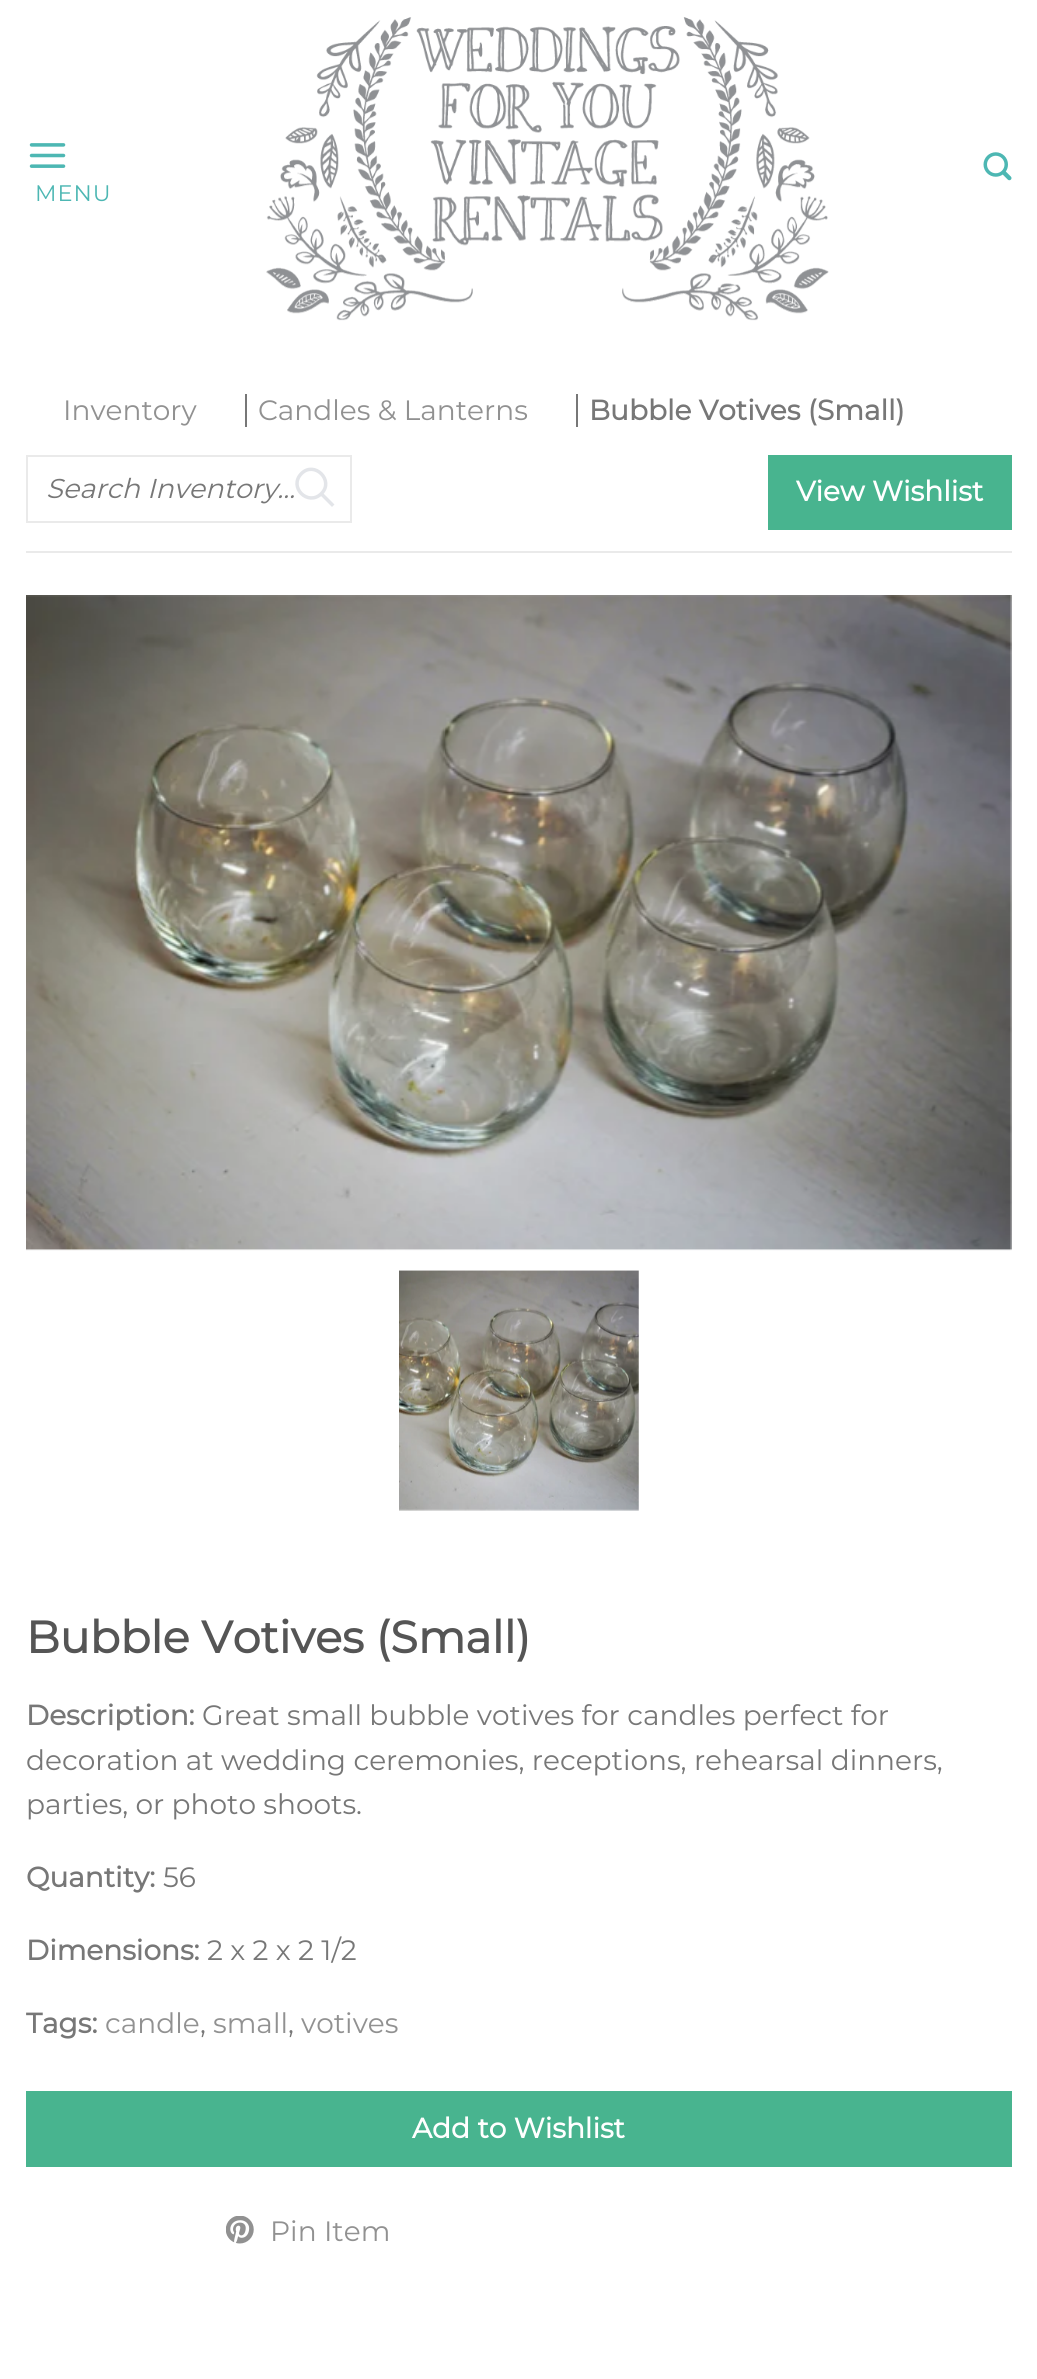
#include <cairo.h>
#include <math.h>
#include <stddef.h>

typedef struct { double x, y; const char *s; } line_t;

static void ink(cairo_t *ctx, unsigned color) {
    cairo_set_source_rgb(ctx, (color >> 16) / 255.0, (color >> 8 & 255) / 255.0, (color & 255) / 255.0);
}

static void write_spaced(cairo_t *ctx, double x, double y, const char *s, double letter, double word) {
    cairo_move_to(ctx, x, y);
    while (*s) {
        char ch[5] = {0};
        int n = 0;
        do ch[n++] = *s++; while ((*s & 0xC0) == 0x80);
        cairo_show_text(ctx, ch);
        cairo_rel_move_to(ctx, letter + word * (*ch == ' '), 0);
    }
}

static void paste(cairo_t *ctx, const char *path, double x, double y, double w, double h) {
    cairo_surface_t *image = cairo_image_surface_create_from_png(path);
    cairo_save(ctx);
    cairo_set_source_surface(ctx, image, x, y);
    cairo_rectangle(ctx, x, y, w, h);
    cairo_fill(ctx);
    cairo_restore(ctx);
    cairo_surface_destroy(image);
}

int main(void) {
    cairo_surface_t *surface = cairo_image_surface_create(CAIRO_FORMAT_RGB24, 1037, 2379);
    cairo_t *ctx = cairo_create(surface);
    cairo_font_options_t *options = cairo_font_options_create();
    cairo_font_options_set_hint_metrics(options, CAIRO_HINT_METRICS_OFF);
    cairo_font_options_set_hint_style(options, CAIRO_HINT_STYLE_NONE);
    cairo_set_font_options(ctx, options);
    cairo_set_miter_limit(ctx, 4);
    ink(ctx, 0xFFFFFF);
    cairo_paint(ctx);
    paste(ctx, "media/1.png", 266, 17, 563, 304);
    paste(ctx, "media/2.png", 983, 152, 29, 29);
    paste(ctx, "media/3.png", 29, 143, 37, 25);
    cairo_select_font_face(ctx, "Montserrat Thin", CAIRO_FONT_SLANT_NORMAL, CAIRO_FONT_WEIGHT_NORMAL);
    cairo_set_font_size(ctx, 22.5);
    ink(ctx, 0x4DB7B3);
    write_spaced(ctx, 35, 201, "MENU", 1, 0);
    ink(ctx, 0xEAEAEA);
    cairo_rectangle(ctx, 26, 551, 986, 2);
    cairo_fill(ctx);
    cairo_set_font_size(ctx, 28);
    ink(ctx, 0x919191);
    cairo_move_to(ctx, 63, 420);
    cairo_show_text(ctx, "Inventory");
    cairo_move_to(ctx, 258, 420);
    cairo_show_text(ctx, "Candles & Lanterns");
    ink(ctx, 0x777777);
    cairo_rectangle(ctx, 245, 394, 2, 33);
    cairo_fill(ctx);
    cairo_select_font_face(ctx, "Montserrat", CAIRO_FONT_SLANT_NORMAL, CAIRO_FONT_WEIGHT_BOLD);
    cairo_move_to(ctx, 589, 420);
    cairo_show_text(ctx, "Bubble Votives (Small)");
    cairo_rectangle(ctx, 576, 394, 2, 33);
    cairo_fill(ctx);
    cairo_rectangle(ctx, 27, 456, 324, 66);
    ink(ctx, 0xEAEAEA);
    cairo_stroke(ctx);
    cairo_select_font_face(ctx, "Montserrat Thin", CAIRO_FONT_SLANT_ITALIC, CAIRO_FONT_WEIGHT_NORMAL);
    cairo_set_font_size(ctx, 27.25);
    ink(ctx, 0x777777);
    cairo_move_to(ctx, 46, 498);
    cairo_show_text(ctx, "Search Inventory…");
    cairo_new_path(ctx);
    cairo_move_to(ctx, 301.5, 473.5);
    cairo_curve_to(ctx, 314.5, 460.5, 334.5, 480.5, 321.5, 493.5);
    cairo_curve_to(ctx, 308, 507, 288, 487, 301.5, 473.5);
    cairo_close_path(ctx);
    ink(ctx, 0xE3E5E9);
    cairo_set_line_width(ctx, 3.5);
    cairo_stroke(ctx);
    cairo_new_path(ctx);
    cairo_move_to(ctx, 322, 494.5);
    cairo_line_to(ctx, 332, 504.5);
    cairo_set_line_cap(ctx, CAIRO_LINE_CAP_SQUARE);
    cairo_stroke(ctx);
    ink(ctx, 0x48B48F);
    cairo_rectangle(ctx, 768, 455, 244, 75);
    cairo_fill(ctx);
    cairo_select_font_face(ctx, "Montserrat", CAIRO_FONT_SLANT_NORMAL, CAIRO_FONT_WEIGHT_BOLD);
    cairo_set_font_size(ctx, 28);
    ink(ctx, 0xFFFFFF);
    cairo_move_to(ctx, 796, 501);
    cairo_show_text(ctx, "View Wishlist");
    paste(ctx, "media/4.png", 26, 595, 986, 656);
    paste(ctx, "media/5.png", 399, 1270, 240, 241);
    cairo_set_font_size(ctx, 44.75);
    ink(ctx, 0x555555);
    cairo_move_to(ctx, 26, 1653);
    cairo_show_text(ctx, "Bubble Votives (Small)");
    cairo_set_font_size(ctx, 28);
    ink(ctx, 0x777777);
    cairo_move_to(ctx, 26, 1725);
    cairo_show_text(ctx, "Description:");
    cairo_select_font_face(ctx, "Montserrat Thin", CAIRO_FONT_SLANT_NORMAL, CAIRO_FONT_WEIGHT_NORMAL);
    {
        static const line_t items[] = {
            {202, 1725, "Great small bubble votives for candles perfect for"},
            {26, 1770, "decoration at wedding ceremonies, receptions, rehearsal dinners,"},
            {26, 1814, "parties, or photo shoots."},
        };
        for (size_t i = 0; i < sizeof items / sizeof *items; i++) {
            cairo_move_to(ctx, items[i].x, items[i].y);
            cairo_show_text(ctx, items[i].s);
        }
    }
    cairo_select_font_face(ctx, "Montserrat", CAIRO_FONT_SLANT_NORMAL, CAIRO_FONT_WEIGHT_BOLD);
    cairo_move_to(ctx, 26, 1887);
    cairo_show_text(ctx, "Quantity:");
    cairo_select_font_face(ctx, "Montserrat Thin", CAIRO_FONT_SLANT_NORMAL, CAIRO_FONT_WEIGHT_NORMAL);
    cairo_move_to(ctx, 163, 1887);
    cairo_show_text(ctx, "56");
    cairo_select_font_face(ctx, "Montserrat", CAIRO_FONT_SLANT_NORMAL, CAIRO_FONT_WEIGHT_BOLD);
    cairo_move_to(ctx, 26, 1960);
    cairo_show_text(ctx, "Dimensions:");
    cairo_select_font_face(ctx, "Montserrat Thin", CAIRO_FONT_SLANT_NORMAL, CAIRO_FONT_WEIGHT_NORMAL);
    cairo_move_to(ctx, 207, 1960);
    cairo_show_text(ctx, "2 x 2 x 2 1/2");
    cairo_select_font_face(ctx, "Montserrat", CAIRO_FONT_SLANT_NORMAL, CAIRO_FONT_WEIGHT_BOLD);
    cairo_move_to(ctx, 26, 2033);
    cairo_show_text(ctx, "Tags:");
    cairo_select_font_face(ctx, "Montserrat Thin", CAIRO_FONT_SLANT_NORMAL, CAIRO_FONT_WEIGHT_NORMAL);
    ink(ctx, 0x919191);
    cairo_move_to(ctx, 105, 2033);
    cairo_show_text(ctx, "candle");
    ink(ctx, 0x777777);
    cairo_move_to(ctx, 200, 2033);
    cairo_show_text(ctx, ",");
    ink(ctx, 0x919191);
    cairo_move_to(ctx, 213, 2033);
    cairo_show_text(ctx, "small");
    ink(ctx, 0x777777);
    cairo_move_to(ctx, 288, 2033);
    cairo_show_text(ctx, ",");
    ink(ctx, 0x919191);
    cairo_move_to(ctx, 301, 2033);
    cairo_show_text(ctx, "votives");
    ink(ctx, 0x48B48F);
    cairo_rectangle(ctx, 26, 2091, 986, 76);
    cairo_fill(ctx);
    cairo_select_font_face(ctx, "Montserrat", CAIRO_FONT_SLANT_NORMAL, CAIRO_FONT_WEIGHT_BOLD);
    ink(ctx, 0xFFFFFF);
    cairo_move_to(ctx, 412, 2138);
    cairo_show_text(ctx, "Add to Wishlist");
    paste(ctx, "media/6.png", 226, 2216, 28, 28);
    cairo_select_font_face(ctx, "Montserrat Thin", CAIRO_FONT_SLANT_NORMAL, CAIRO_FONT_WEIGHT_NORMAL);
    ink(ctx, 0x919191);
    cairo_move_to(ctx, 270, 2241);
    cairo_show_text(ctx, "Pin Item");
    cairo_surface_write_to_png(surface, "image.png");
    cairo_font_options_destroy(options);
    cairo_destroy(ctx);
    cairo_surface_destroy(surface);
    return 0;
}
